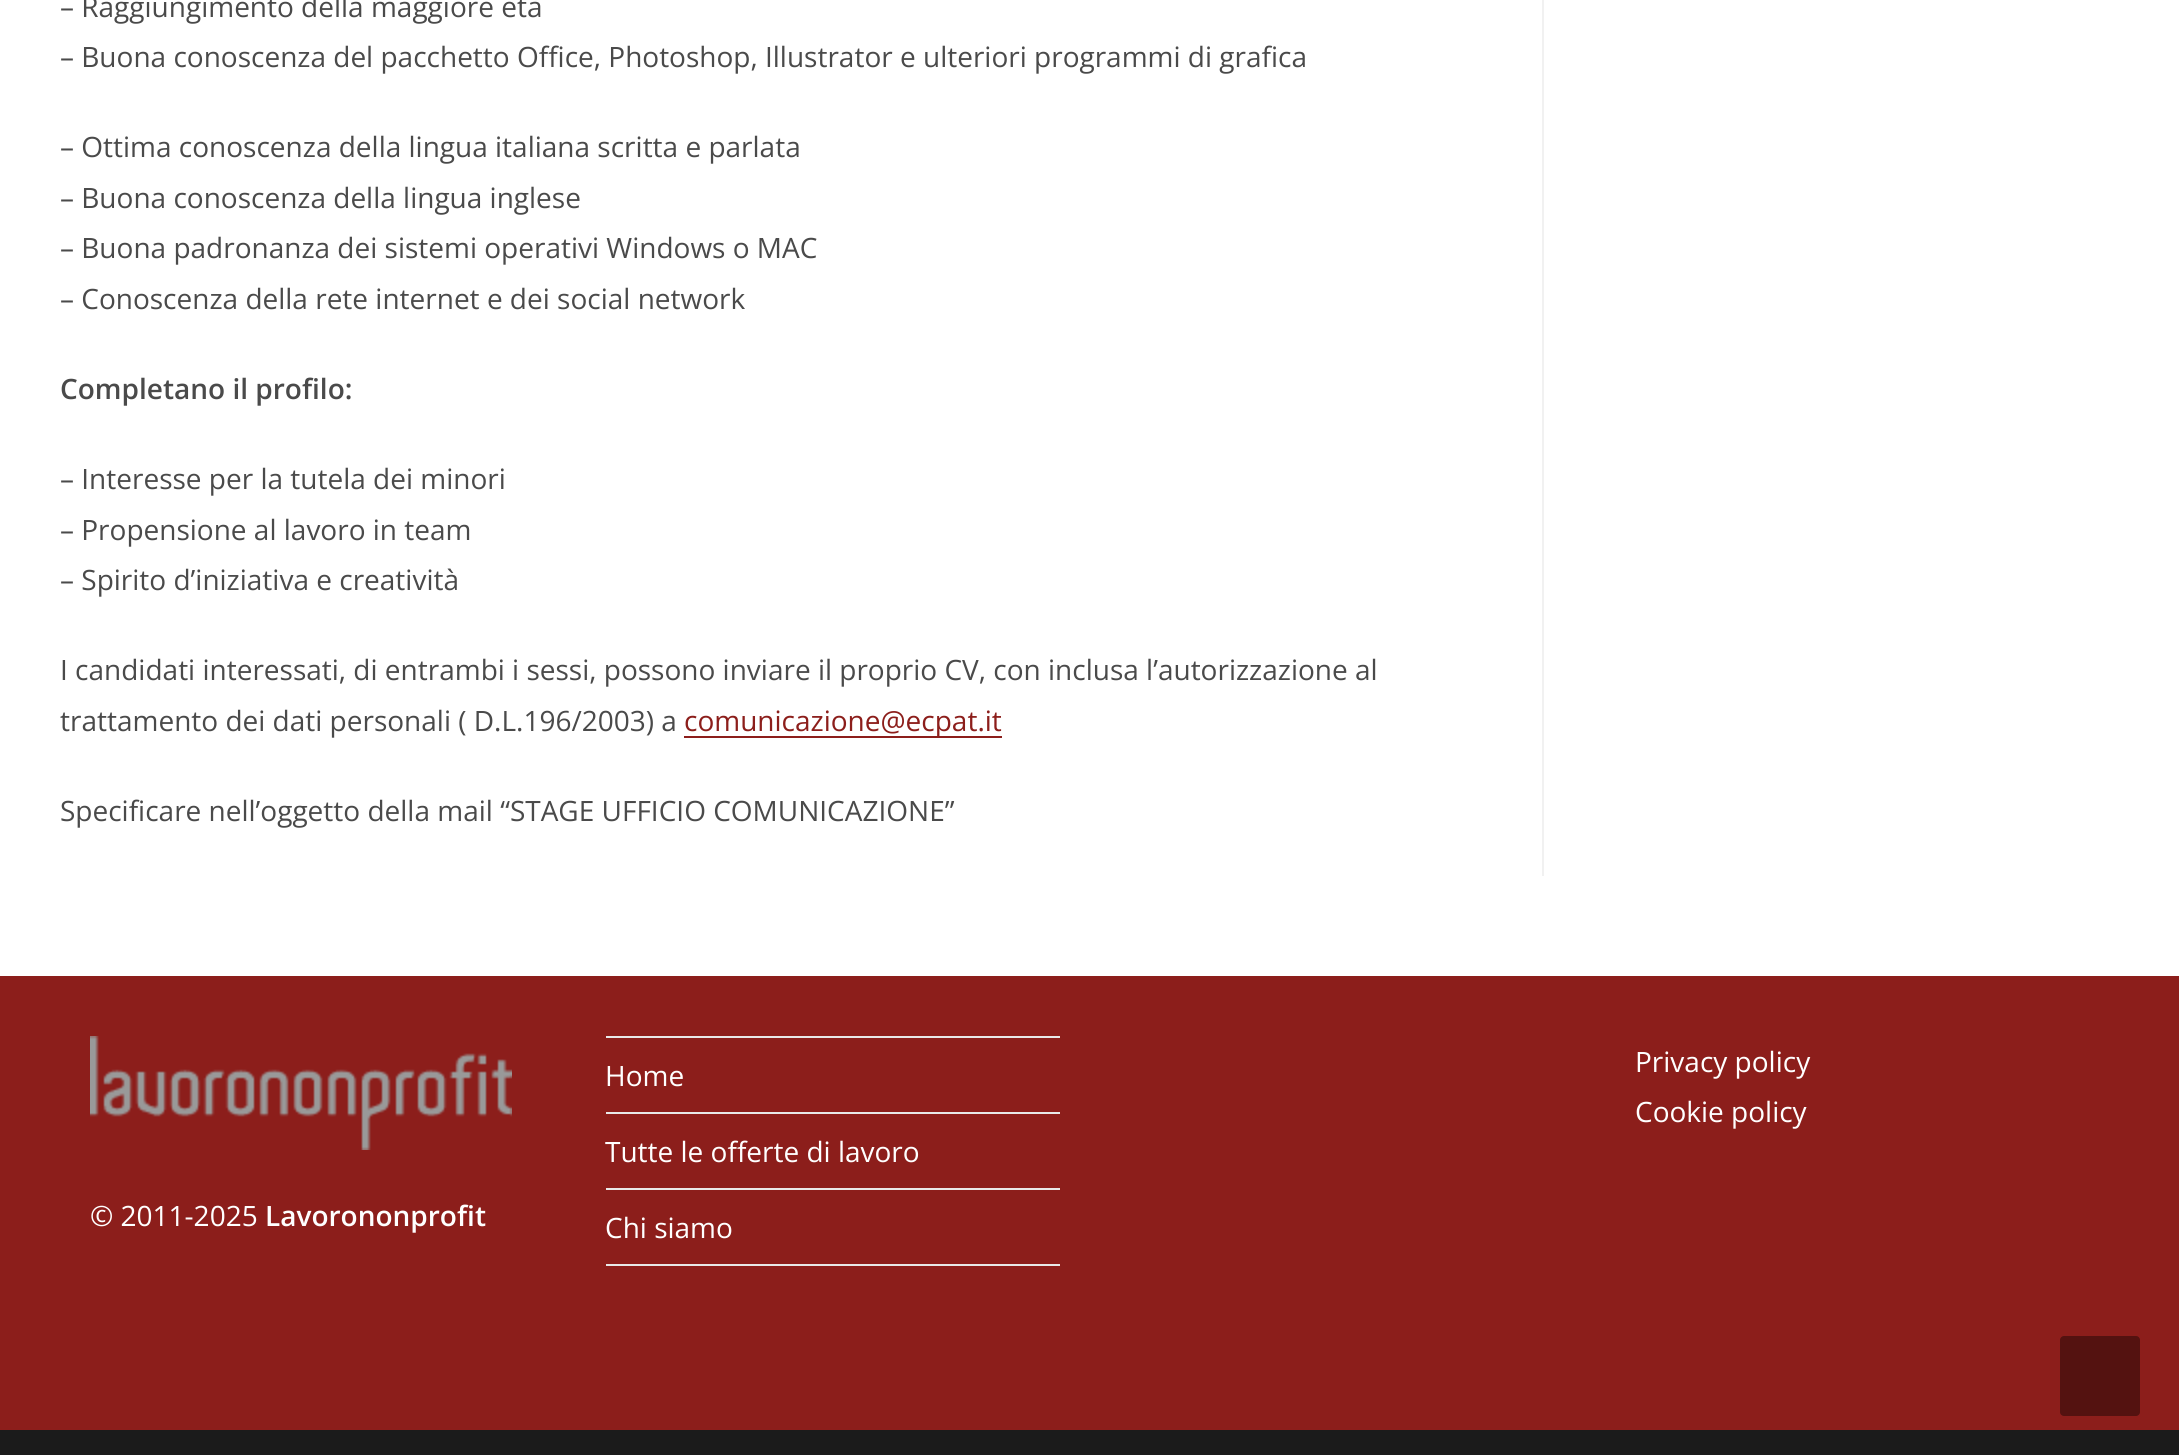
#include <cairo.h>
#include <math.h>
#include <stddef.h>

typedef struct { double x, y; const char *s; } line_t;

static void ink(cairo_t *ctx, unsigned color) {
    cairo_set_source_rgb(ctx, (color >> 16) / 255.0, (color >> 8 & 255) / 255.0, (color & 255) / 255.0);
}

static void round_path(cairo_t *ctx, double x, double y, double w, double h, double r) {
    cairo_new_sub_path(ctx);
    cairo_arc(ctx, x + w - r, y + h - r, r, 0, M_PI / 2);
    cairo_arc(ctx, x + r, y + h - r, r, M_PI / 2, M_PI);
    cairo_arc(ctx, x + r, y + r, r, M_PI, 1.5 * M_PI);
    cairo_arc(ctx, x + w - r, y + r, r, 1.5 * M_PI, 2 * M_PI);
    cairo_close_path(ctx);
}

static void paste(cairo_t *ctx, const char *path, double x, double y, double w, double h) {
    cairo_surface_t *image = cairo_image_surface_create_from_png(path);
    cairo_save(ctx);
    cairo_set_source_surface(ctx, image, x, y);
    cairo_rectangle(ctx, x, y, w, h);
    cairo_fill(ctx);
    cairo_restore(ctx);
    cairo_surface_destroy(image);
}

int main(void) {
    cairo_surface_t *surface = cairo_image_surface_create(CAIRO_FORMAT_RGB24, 2179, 1455);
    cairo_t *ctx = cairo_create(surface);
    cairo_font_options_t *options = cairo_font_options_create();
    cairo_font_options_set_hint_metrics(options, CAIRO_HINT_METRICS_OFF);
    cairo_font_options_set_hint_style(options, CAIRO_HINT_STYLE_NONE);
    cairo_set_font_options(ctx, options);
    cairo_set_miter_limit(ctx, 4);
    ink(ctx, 0xFFFFFF);
    cairo_paint(ctx);
    ink(ctx, 0xF1F1F1);
    cairo_rectangle(ctx, 1542, 0, 2, 876);
    cairo_fill(ctx);
    cairo_select_font_face(ctx, "Open Sans", CAIRO_FONT_SLANT_NORMAL, CAIRO_FONT_WEIGHT_NORMAL);
    cairo_set_font_size(ctx, 28);
    ink(ctx, 0x4A4A4A);
    {
        static const line_t items[] = {
            {60, 17, "– Raggiungimento della maggiore età"},
            {60, 67, "– Buona conoscenza del pacchetto Office, Photoshop, Illustrator e ulteriori programmi di grafica"},
            {60, 157, "– Ottima conoscenza della lingua italiana scritta e parlata"},
            {60, 208, "– Buona conoscenza della lingua inglese"},
            {60, 258, "– Buona padronanza dei sistemi operativi Windows o MAC"},
            {60, 309, "– Conoscenza della rete internet e dei social network"},
        };
        for (size_t i = 0; i < sizeof items / sizeof *items; i++) {
            cairo_move_to(ctx, items[i].x, items[i].y);
            cairo_show_text(ctx, items[i].s);
        }
    }
    cairo_select_font_face(ctx, "Open Sans SemiBold", CAIRO_FONT_SLANT_NORMAL, CAIRO_FONT_WEIGHT_NORMAL);
    cairo_move_to(ctx, 60, 399);
    cairo_show_text(ctx, "Completano il profilo:");
    cairo_select_font_face(ctx, "Open Sans", CAIRO_FONT_SLANT_NORMAL, CAIRO_FONT_WEIGHT_NORMAL);
    {
        static const line_t items[] = {
            {60, 489, "– Interesse per la tutela dei minori"},
            {60, 540, "– Propensione al lavoro in team"},
            {60, 590, "– Spirito d’iniziativa e creatività"},
            {60, 680, "I candidati interessati, di entrambi i sessi, possono inviare il proprio CV, con inclusa l’autorizzazione al"},
            {60, 731, "trattamento dei dati personali ( D.L.196/2003) a"},
        };
        for (size_t i = 0; i < sizeof items / sizeof *items; i++) {
            cairo_move_to(ctx, items[i].x, items[i].y);
            cairo_show_text(ctx, items[i].s);
        }
    }
    ink(ctx, 0x8C1E1B);
    cairo_rectangle(ctx, 684, 736, 318, 2);
    cairo_fill(ctx);
    cairo_move_to(ctx, 684, 731);
    cairo_show_text(ctx, "comunicazione@ecpat.it");
    ink(ctx, 0x4A4A4A);
    cairo_move_to(ctx, 60, 821);
    cairo_show_text(ctx, "Specificare nell’oggetto della mail “STAGE UFFICIO COMUNICAZIONE”");
    ink(ctx, 0x8C1E1B);
    cairo_rectangle(ctx, 0, 976, 2179, 454);
    cairo_fill(ctx);
    paste(ctx, "media/1.png", 90, 1036, 422, 114);
    ink(ctx, 0xFFFFFF);
    cairo_move_to(ctx, 90, 1226);
    cairo_show_text(ctx, "© 2011-2025");
    cairo_select_font_face(ctx, "Open Sans SemiBold", CAIRO_FONT_SLANT_NORMAL, CAIRO_FONT_WEIGHT_NORMAL);
    cairo_move_to(ctx, 265, 1226);
    cairo_show_text(ctx, "Lavorononprofit");
    ink(ctx, 0xE9E9E9);
    cairo_rectangle(ctx, 606, 1036, 454, 2);
    cairo_fill(ctx);
    cairo_rectangle(ctx, 606, 1112, 454, 2);
    cairo_fill(ctx);
    cairo_select_font_face(ctx, "Open Sans", CAIRO_FONT_SLANT_NORMAL, CAIRO_FONT_WEIGHT_NORMAL);
    ink(ctx, 0xFFFFFF);
    cairo_move_to(ctx, 605, 1086);
    cairo_show_text(ctx, "Home");
    ink(ctx, 0xE9E9E9);
    cairo_rectangle(ctx, 606, 1188, 454, 2);
    cairo_fill(ctx);
    ink(ctx, 0xFFFFFF);
    cairo_move_to(ctx, 605, 1162);
    cairo_show_text(ctx, "Tutte le offerte di lavoro");
    ink(ctx, 0xE9E9E9);
    cairo_rectangle(ctx, 606, 1264, 454, 2);
    cairo_fill(ctx);
    ink(ctx, 0xFFFFFF);
    {
        static const line_t items[] = {
            {605, 1238, "Chi siamo"},
            {1635, 1072, "Privacy policy"},
            {1635, 1122, "Cookie policy"},
        };
        for (size_t i = 0; i < sizeof items / sizeof *items; i++) {
            cairo_move_to(ctx, items[i].x, items[i].y);
            cairo_show_text(ctx, items[i].s);
        }
    }
    ink(ctx, 0x1B1B1B);
    cairo_rectangle(ctx, 0, 1430, 2179, 25);
    cairo_fill(ctx);
    ink(ctx, 0x541210);
    round_path(ctx, 2060, 1336, 80, 80, 4);
    cairo_fill(ctx);
    cairo_surface_write_to_png(surface, "image.png");
    cairo_font_options_destroy(options);
    cairo_destroy(ctx);
    cairo_surface_destroy(surface);
    return 0;
}
